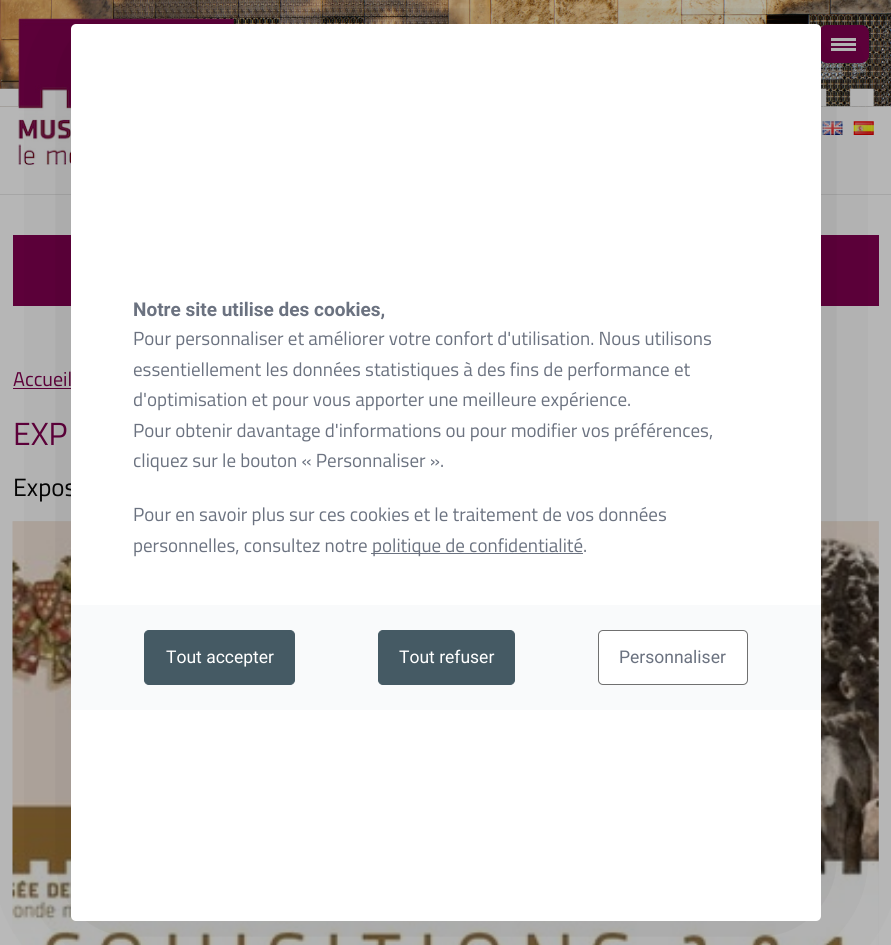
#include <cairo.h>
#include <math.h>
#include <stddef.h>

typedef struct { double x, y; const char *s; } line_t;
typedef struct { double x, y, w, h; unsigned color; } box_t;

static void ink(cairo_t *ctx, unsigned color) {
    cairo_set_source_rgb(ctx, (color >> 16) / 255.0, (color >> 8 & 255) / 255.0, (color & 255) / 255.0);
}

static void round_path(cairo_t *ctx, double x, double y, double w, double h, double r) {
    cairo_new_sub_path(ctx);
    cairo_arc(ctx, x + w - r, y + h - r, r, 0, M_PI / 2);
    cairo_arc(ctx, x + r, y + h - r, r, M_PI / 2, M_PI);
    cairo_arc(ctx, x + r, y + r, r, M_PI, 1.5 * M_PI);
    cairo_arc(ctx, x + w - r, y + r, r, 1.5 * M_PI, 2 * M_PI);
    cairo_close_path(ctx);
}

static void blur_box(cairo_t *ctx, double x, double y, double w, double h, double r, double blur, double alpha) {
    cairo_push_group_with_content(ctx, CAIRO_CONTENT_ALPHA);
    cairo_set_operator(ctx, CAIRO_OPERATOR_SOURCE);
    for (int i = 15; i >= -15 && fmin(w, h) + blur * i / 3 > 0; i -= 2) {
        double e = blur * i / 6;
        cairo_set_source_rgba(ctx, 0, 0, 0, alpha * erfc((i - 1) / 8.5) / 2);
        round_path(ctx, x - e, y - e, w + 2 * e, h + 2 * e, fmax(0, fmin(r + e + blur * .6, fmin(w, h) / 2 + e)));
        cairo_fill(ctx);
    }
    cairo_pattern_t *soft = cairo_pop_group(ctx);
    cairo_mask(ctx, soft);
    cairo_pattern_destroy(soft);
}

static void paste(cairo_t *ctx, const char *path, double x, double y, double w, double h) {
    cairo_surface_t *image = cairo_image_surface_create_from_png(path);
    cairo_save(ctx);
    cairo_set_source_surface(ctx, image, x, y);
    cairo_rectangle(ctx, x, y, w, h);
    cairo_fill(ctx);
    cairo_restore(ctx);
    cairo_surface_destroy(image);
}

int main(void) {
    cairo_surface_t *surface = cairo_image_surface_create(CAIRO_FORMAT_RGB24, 891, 945);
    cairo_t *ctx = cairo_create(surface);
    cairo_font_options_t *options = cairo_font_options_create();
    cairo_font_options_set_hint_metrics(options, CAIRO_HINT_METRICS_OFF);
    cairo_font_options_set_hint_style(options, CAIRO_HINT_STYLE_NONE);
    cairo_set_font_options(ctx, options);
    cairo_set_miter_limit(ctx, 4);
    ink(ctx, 0xBFBFBF);
    cairo_paint(ctx);
    paste(ctx, "media/1.png", 0, 0, 891, 107);
    ink(ctx, 0xAEAEAE);
    cairo_rectangle(ctx, 0, 194, 891, 1);
    cairo_fill(ctx);
    paste(ctx, "media/5.png", 0, 88, 874, 19);
    paste(ctx, "media/2.png", 18, 18, 216, 147);
    ink(ctx, 0x62003D);
    round_path(ctx, 819, 25, 50, 38, 8);
    cairo_fill(ctx);
    {
        static const box_t items[] = {
            {831, 38, 25, 3, 0xBFBFBF},
            {831, 43, 25, 3, 0xBFBFBF},
            {831, 48, 25, 3, 0xBFBFBF},
        };
        for (size_t i = 0; i < sizeof items / sizeof *items; i++) {
            ink(ctx, items[i].color);
            cairo_rectangle(ctx, items[i].x, items[i].y, items[i].w, items[i].h);
            cairo_fill(ctx);
        }
    }
    paste(ctx, "media/3.png", 822, 121, 21, 14);
    paste(ctx, "media/4.png", 853, 121, 21, 14);
    ink(ctx, 0x62003D);
    cairo_rectangle(ctx, 13, 235, 866, 71);
    cairo_fill(ctx);
    cairo_select_font_face(ctx, "Titillium Web", CAIRO_FONT_SLANT_NORMAL, CAIRO_FONT_WEIGHT_NORMAL);
    cairo_set_font_size(ctx, 20);
    cairo_move_to(ctx, 13, 386);
    cairo_show_text(ctx, "Accueil");
    cairo_rectangle(ctx, 13, 388, 58, 1);
    cairo_fill(ctx);
    cairo_set_font_size(ctx, 32);
    cairo_move_to(ctx, 13, 445);
    cairo_show_text(ctx, "EXP");
    cairo_set_font_size(ctx, 25);
    ink(ctx, 0x040404);
    cairo_move_to(ctx, 13, 496);
    cairo_show_text(ctx, "Expos");
    ink(ctx, 0xB7B7B7);
    cairo_rectangle(ctx, 13, 521, 866, 424);
    cairo_fill(ctx);
    paste(ctx, "media/6.png", 12, 521, 867, 424);
    ink(ctx, 0x000000);
    blur_box(ctx, 71, 24, 750, 897, 5, 94, 0.2);
    ink(ctx, 0xFFFFFF);
    round_path(ctx, 71, 24, 750, 897, 5);
    cairo_fill(ctx);
    cairo_select_font_face(ctx, "Roboto", CAIRO_FONT_SLANT_NORMAL, CAIRO_FONT_WEIGHT_BOLD);
    cairo_set_font_size(ctx, 19);
    ink(ctx, 0x6B7280);
    cairo_move_to(ctx, 133, 316);
    cairo_show_text(ctx, "Notre site utilise des cookies,");
    cairo_select_font_face(ctx, "Titillium Web", CAIRO_FONT_SLANT_NORMAL, CAIRO_FONT_WEIGHT_NORMAL);
    {
        static const line_t items[] = {
            {133, 345, "Pour personnaliser et améliorer votre confort d'utilisation. Nous utilisons"},
            {133, 376, "essentiellement les données statistiques à des fins de performance et"},
            {133, 406, "d'optimisation et pour vous apporter une meilleure expérience."},
            {133, 437, "Pour obtenir davantage d'informations ou pour modifier vos préférences,"},
            {133, 467, "cliquez sur le bouton « Personnaliser »."},
            {133, 521, "Pour en savoir plus sur ces cookies et le traitement de vos données"},
            {133, 552, "personnelles, consultez notre"},
        };
        for (size_t i = 0; i < sizeof items / sizeof *items; i++) {
            cairo_move_to(ctx, items[i].x, items[i].y);
            cairo_show_text(ctx, items[i].s);
        }
    }
    cairo_rectangle(ctx, 371, 553, 212, 1);
    cairo_fill(ctx);
    cairo_move_to(ctx, 372, 552);
    cairo_show_text(ctx, "politique de confidentialité.");
    ink(ctx, 0xF9FAFB);
    cairo_rectangle(ctx, 71, 605, 750, 105);
    cairo_fill(ctx);
    ink(ctx, 0x455A64);
    round_path(ctx, 144.5, 630.5, 150, 54, 4.5);
    cairo_fill_preserve(ctx);
    cairo_set_line_width(ctx, 1);
    cairo_stroke(ctx);
    cairo_select_font_face(ctx, "Roboto", CAIRO_FONT_SLANT_NORMAL, CAIRO_FONT_WEIGHT_NORMAL);
    cairo_set_font_size(ctx, 17.5);
    ink(ctx, 0xFFFFFF);
    cairo_move_to(ctx, 166, 663);
    cairo_show_text(ctx, "Tout accepter");
    ink(ctx, 0x455A64);
    round_path(ctx, 378.5, 630.5, 136, 54, 4.5);
    cairo_fill_preserve(ctx);
    cairo_stroke(ctx);
    ink(ctx, 0xFFFFFF);
    cairo_move_to(ctx, 399, 663);
    cairo_show_text(ctx, "Tout refuser");
    round_path(ctx, 598.5, 630.5, 149, 54, 4.5);
    cairo_fill_preserve(ctx);
    ink(ctx, 0x707070);
    cairo_stroke(ctx);
    ink(ctx, 0x6B7280);
    cairo_move_to(ctx, 619, 663);
    cairo_show_text(ctx, "Personnaliser");
    cairo_surface_write_to_png(surface, "image.png");
    cairo_font_options_destroy(options);
    cairo_destroy(ctx);
    cairo_surface_destroy(surface);
    return 0;
}
